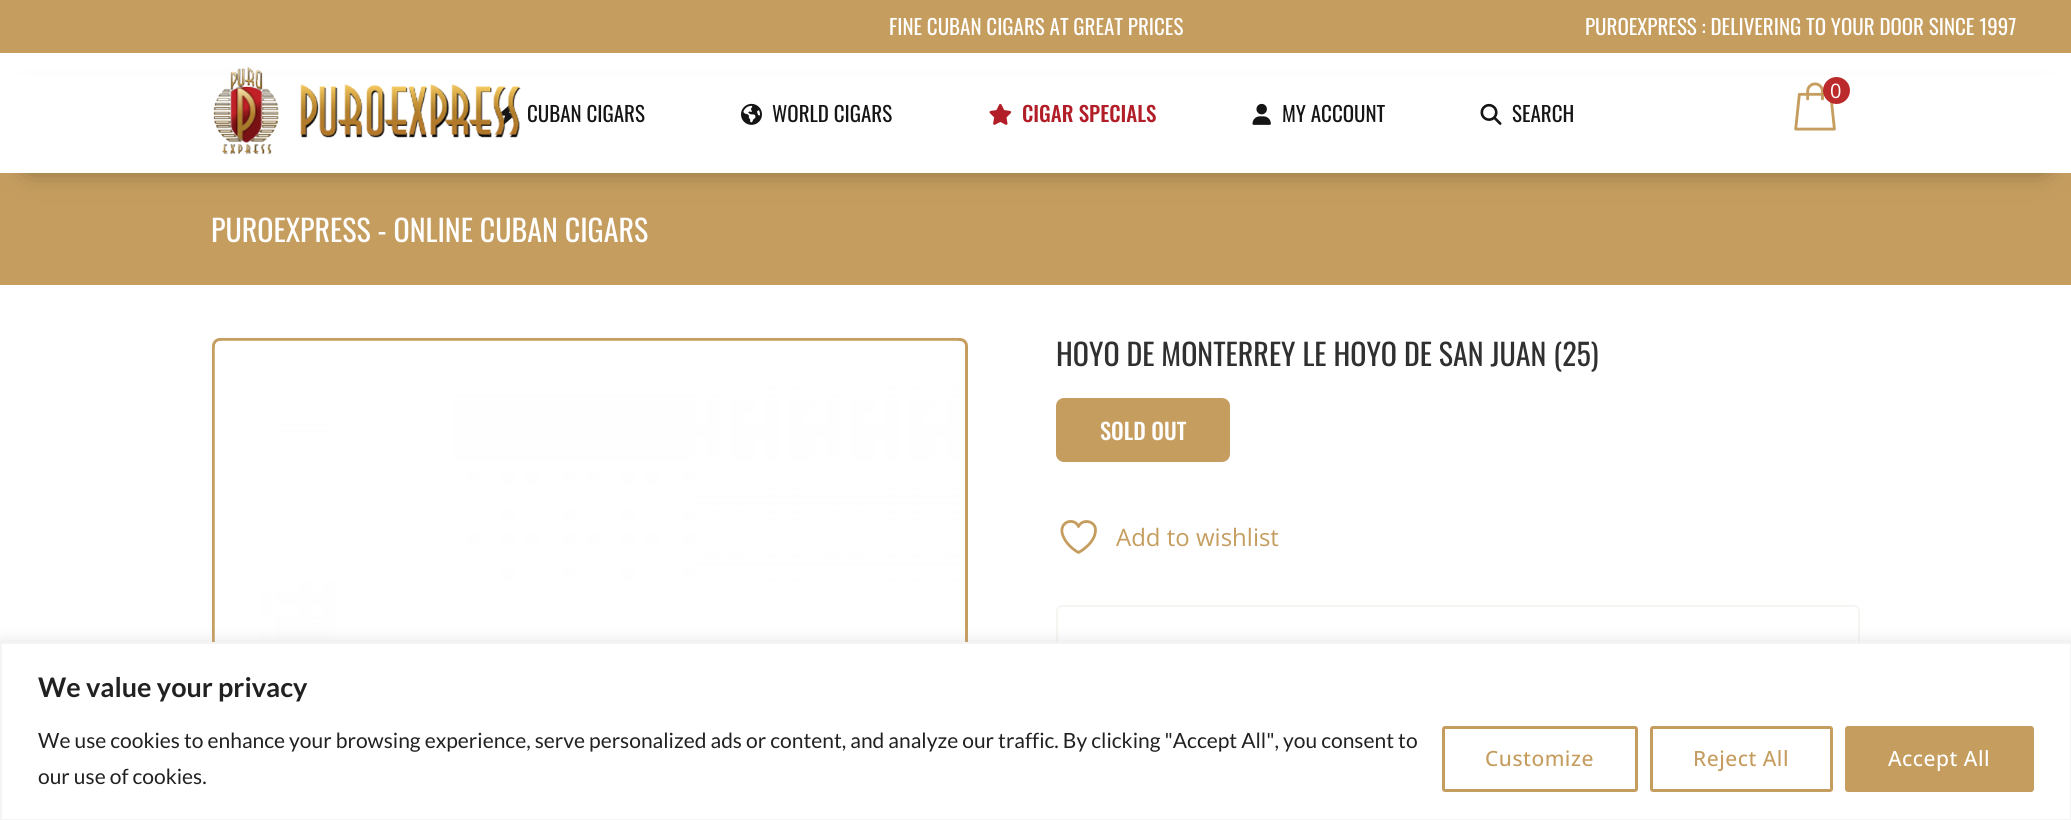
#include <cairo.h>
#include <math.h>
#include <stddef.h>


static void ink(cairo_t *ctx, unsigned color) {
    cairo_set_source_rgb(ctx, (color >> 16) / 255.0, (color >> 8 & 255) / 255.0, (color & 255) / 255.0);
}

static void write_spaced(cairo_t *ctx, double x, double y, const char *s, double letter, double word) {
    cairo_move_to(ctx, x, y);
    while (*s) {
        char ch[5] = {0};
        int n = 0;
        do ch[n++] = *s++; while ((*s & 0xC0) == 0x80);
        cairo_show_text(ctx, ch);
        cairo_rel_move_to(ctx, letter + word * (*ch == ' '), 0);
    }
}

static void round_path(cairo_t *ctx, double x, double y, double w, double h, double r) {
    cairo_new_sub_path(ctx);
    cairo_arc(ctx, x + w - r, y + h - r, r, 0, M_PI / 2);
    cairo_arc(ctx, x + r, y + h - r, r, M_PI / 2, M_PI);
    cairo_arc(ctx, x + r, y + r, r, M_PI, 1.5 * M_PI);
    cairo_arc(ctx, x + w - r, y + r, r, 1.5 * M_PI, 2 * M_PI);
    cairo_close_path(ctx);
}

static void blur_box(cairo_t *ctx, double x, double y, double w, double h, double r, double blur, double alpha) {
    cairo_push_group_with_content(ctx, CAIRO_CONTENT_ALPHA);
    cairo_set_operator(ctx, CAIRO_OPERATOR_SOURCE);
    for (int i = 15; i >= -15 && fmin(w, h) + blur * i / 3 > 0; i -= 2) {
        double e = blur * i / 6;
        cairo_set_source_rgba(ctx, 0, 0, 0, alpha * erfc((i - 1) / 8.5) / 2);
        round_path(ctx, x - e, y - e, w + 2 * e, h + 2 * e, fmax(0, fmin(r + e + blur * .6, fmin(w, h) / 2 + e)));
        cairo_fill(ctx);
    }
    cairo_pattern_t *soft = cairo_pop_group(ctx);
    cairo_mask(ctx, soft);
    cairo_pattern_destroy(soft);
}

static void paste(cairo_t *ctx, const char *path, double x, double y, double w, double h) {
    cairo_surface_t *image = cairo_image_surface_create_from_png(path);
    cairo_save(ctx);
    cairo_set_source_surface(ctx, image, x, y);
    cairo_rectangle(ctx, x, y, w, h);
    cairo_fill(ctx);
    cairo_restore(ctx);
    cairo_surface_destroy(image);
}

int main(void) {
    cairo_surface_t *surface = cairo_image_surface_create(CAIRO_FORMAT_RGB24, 2071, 820);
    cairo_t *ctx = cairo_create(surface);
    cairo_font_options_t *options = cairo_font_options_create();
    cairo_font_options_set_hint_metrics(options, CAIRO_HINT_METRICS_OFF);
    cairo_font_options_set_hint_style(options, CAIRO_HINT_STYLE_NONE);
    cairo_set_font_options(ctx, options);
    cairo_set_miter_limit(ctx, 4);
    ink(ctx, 0xFFFFFF);
    cairo_paint(ctx);
    ink(ctx, 0xC59D5F);
    cairo_rectangle(ctx, 0, 0, 2071, 53);
    cairo_fill(ctx);
    cairo_select_font_face(ctx, "Oswald", CAIRO_FONT_SLANT_NORMAL, CAIRO_FONT_WEIGHT_NORMAL);
    cairo_set_font_size(ctx, 21);
    ink(ctx, 0xFFFFFF);
    cairo_move_to(ctx, 889, 35);
    cairo_show_text(ctx, "FINE CUBAN CIGARS AT GREAT PRICES");
    cairo_move_to(ctx, 1585, 35);
    cairo_show_text(ctx, "PUROEXPRESS : DELIVERING TO YOUR DOOR SINCE 1997");
    ink(ctx, 0xC59D5F);
    cairo_rectangle(ctx, 0, 173, 2071, 112);
    cairo_fill(ctx);
    ink(ctx, 0x000000);
    blur_box(ctx, 30, 105, 2012, 60, 0, 15, 0.45);
    ink(ctx, 0xFFFFFF);
    cairo_rectangle(ctx, 0, 75, 2071, 98);
    cairo_fill(ctx);
    paste(ctx, "media/3.png", 500, 104, 13, 21);
    paste(ctx, "media/1.png", 213, 67, 308, 88);
    paste(ctx, "media/2.png", 1794, 82, 42, 49);
    ink(ctx, 0xBC2B2B);
    cairo_arc(ctx, 1836.5, 90.5, 13.5, 0, 2 * M_PI);
    cairo_fill(ctx);
    cairo_select_font_face(ctx, "Open Sans", CAIRO_FONT_SLANT_NORMAL, CAIRO_FONT_WEIGHT_NORMAL);
    cairo_set_font_size(ctx, 20);
    ink(ctx, 0xFFFFFF);
    cairo_move_to(ctx, 1830, 98);
    cairo_show_text(ctx, "0");
    cairo_select_font_face(ctx, "Oswald", CAIRO_FONT_SLANT_NORMAL, CAIRO_FONT_WEIGHT_NORMAL);
    cairo_set_font_size(ctx, 21);
    ink(ctx, 0x151515);
    cairo_move_to(ctx, 527, 122);
    cairo_show_text(ctx, "CUBAN CIGARS");
    paste(ctx, "media/4.png", 741, 103, 21, 22);
    cairo_move_to(ctx, 772, 122);
    cairo_show_text(ctx, "WORLD CIGARS");
    paste(ctx, "media/5.png", 989, 103, 23, 22);
    cairo_select_font_face(ctx, "Oswald Medium", CAIRO_FONT_SLANT_NORMAL, CAIRO_FONT_WEIGHT_NORMAL);
    ink(ctx, 0xB11E28);
    cairo_move_to(ctx, 1022, 122);
    cairo_show_text(ctx, "CIGAR SPECIALS");
    paste(ctx, "media/6.png", 1252, 103, 19, 22);
    cairo_select_font_face(ctx, "Oswald", CAIRO_FONT_SLANT_NORMAL, CAIRO_FONT_WEIGHT_NORMAL);
    ink(ctx, 0x151515);
    cairo_move_to(ctx, 1282, 122);
    cairo_show_text(ctx, "MY ACCOUNT");
    paste(ctx, "media/7.png", 1480, 103, 22, 22);
    cairo_move_to(ctx, 1512, 122);
    cairo_show_text(ctx, "SEARCH");
    cairo_set_font_size(ctx, 30);
    ink(ctx, 0xFFFFFF);
    cairo_move_to(ctx, 211, 242);
    cairo_show_text(ctx, "PUROEXPRESS - ONLINE CUBAN CIGARS");
    round_path(ctx, 213.5, 339.5, 753, 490, 6.5);
    ink(ctx, 0xC59D5F);
    cairo_set_line_width(ctx, 3);
    cairo_stroke(ctx);
    paste(ctx, "media/8.png", 214, 340, 746, 302);
    ink(ctx, 0x303030);
    cairo_move_to(ctx, 1056, 366);
    cairo_show_text(ctx, "HOYO DE MONTERREY LE HOYO DE SAN JUAN (25)");
    ink(ctx, 0xC59D5F);
    round_path(ctx, 1057.5, 399.5, 171, 61, 6.5);
    cairo_fill_preserve(ctx);
    cairo_stroke(ctx);
    cairo_select_font_face(ctx, "Oswald Medium", CAIRO_FONT_SLANT_NORMAL, CAIRO_FONT_WEIGHT_NORMAL);
    cairo_set_font_size(ctx, 22.5);
    ink(ctx, 0xFFFFFF);
    cairo_move_to(ctx, 1100, 440);
    cairo_show_text(ctx, "SOLD OUT");
    cairo_new_path(ctx);
    cairo_move_to(ctx, 1095.5, 530);
    cairo_curve_to(ctx, 1095.5, 520.5, 1082, 518.5, 1078.5, 526.5);
    cairo_curve_to(ctx, 1074, 516, 1055, 522.5, 1064.5, 539);
    cairo_curve_to(ctx, 1067.5, 544.5, 1073, 549.5, 1078.5, 552.5);
    cairo_curve_to(ctx, 1078.5, 552.5, 1095.5, 543.5, 1095.5, 530);
    cairo_close_path(ctx);
    ink(ctx, 0xC59D5F);
    cairo_set_line_width(ctx, 2.8);
    cairo_set_line_cap(ctx, CAIRO_LINE_CAP_ROUND);
    cairo_set_line_join(ctx, CAIRO_LINE_JOIN_ROUND);
    cairo_stroke(ctx);
    cairo_select_font_face(ctx, "Open Sans", CAIRO_FONT_SLANT_NORMAL, CAIRO_FONT_WEIGHT_NORMAL);
    cairo_set_font_size(ctx, 24);
    cairo_move_to(ctx, 1116, 546);
    cairo_show_text(ctx, "Add to wishlist");
    round_path(ctx, 1057, 606, 802, 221, 5);
    ink(ctx, 0xF7F5F2);
    cairo_set_line_width(ctx, 2);
    cairo_set_line_cap(ctx, CAIRO_LINE_CAP_BUTT);
    cairo_set_line_join(ctx, CAIRO_LINE_JOIN_MITER);
    cairo_stroke(ctx);
    ink(ctx, 0xACABAB);
    blur_box(ctx, 0, 641, 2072, 178, 0, 7.5, 0.3);
    ink(ctx, 0xFFFFFF);
    cairo_rectangle(ctx, 1, 643, 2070, 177);
    cairo_fill_preserve(ctx);
    ink(ctx, 0xF4F4F4);
    cairo_stroke(ctx);
    cairo_select_font_face(ctx, "Lato", CAIRO_FONT_SLANT_NORMAL, CAIRO_FONT_WEIGHT_BOLD);
    cairo_set_font_size(ctx, 27);
    ink(ctx, 0x212121);
    cairo_move_to(ctx, 38, 697);
    cairo_show_text(ctx, "We value your privacy");
    cairo_select_font_face(ctx, "Lato", CAIRO_FONT_SLANT_NORMAL, CAIRO_FONT_WEIGHT_NORMAL);
    cairo_set_font_size(ctx, 21);
    cairo_move_to(ctx, 38, 748);
    cairo_show_text(ctx, "We use cookies to enhance your browsing experience, serve personalized ads or content, and analyze our traffic. By clicking \"Accept All\", you consent to");
    cairo_move_to(ctx, 38, 784);
    cairo_show_text(ctx, "our use of cookies.");
    round_path(ctx, 1443.5, 727.5, 193, 63, 1.5);
    ink(ctx, 0xC59D5F);
    cairo_set_line_width(ctx, 3);
    cairo_stroke(ctx);
    cairo_select_font_face(ctx, "Open Sans Medium", CAIRO_FONT_SLANT_NORMAL, CAIRO_FONT_WEIGHT_NORMAL);
    write_spaced(ctx, 1485, 766, "Customize", 0.5, 0);
    round_path(ctx, 1651.5, 727.5, 180, 63, 1.5);
    cairo_stroke(ctx);
    write_spaced(ctx, 1693, 766, "Reject All", 0.5, 0);
    round_path(ctx, 1846.5, 727.5, 186, 63, 1.5);
    cairo_fill_preserve(ctx);
    cairo_stroke(ctx);
    ink(ctx, 0xFFFFFF);
    write_spaced(ctx, 1888, 766, "Accept All", 0.5, 0);
    cairo_surface_write_to_png(surface, "image.png");
    cairo_font_options_destroy(options);
    cairo_destroy(ctx);
    cairo_surface_destroy(surface);
    return 0;
}
